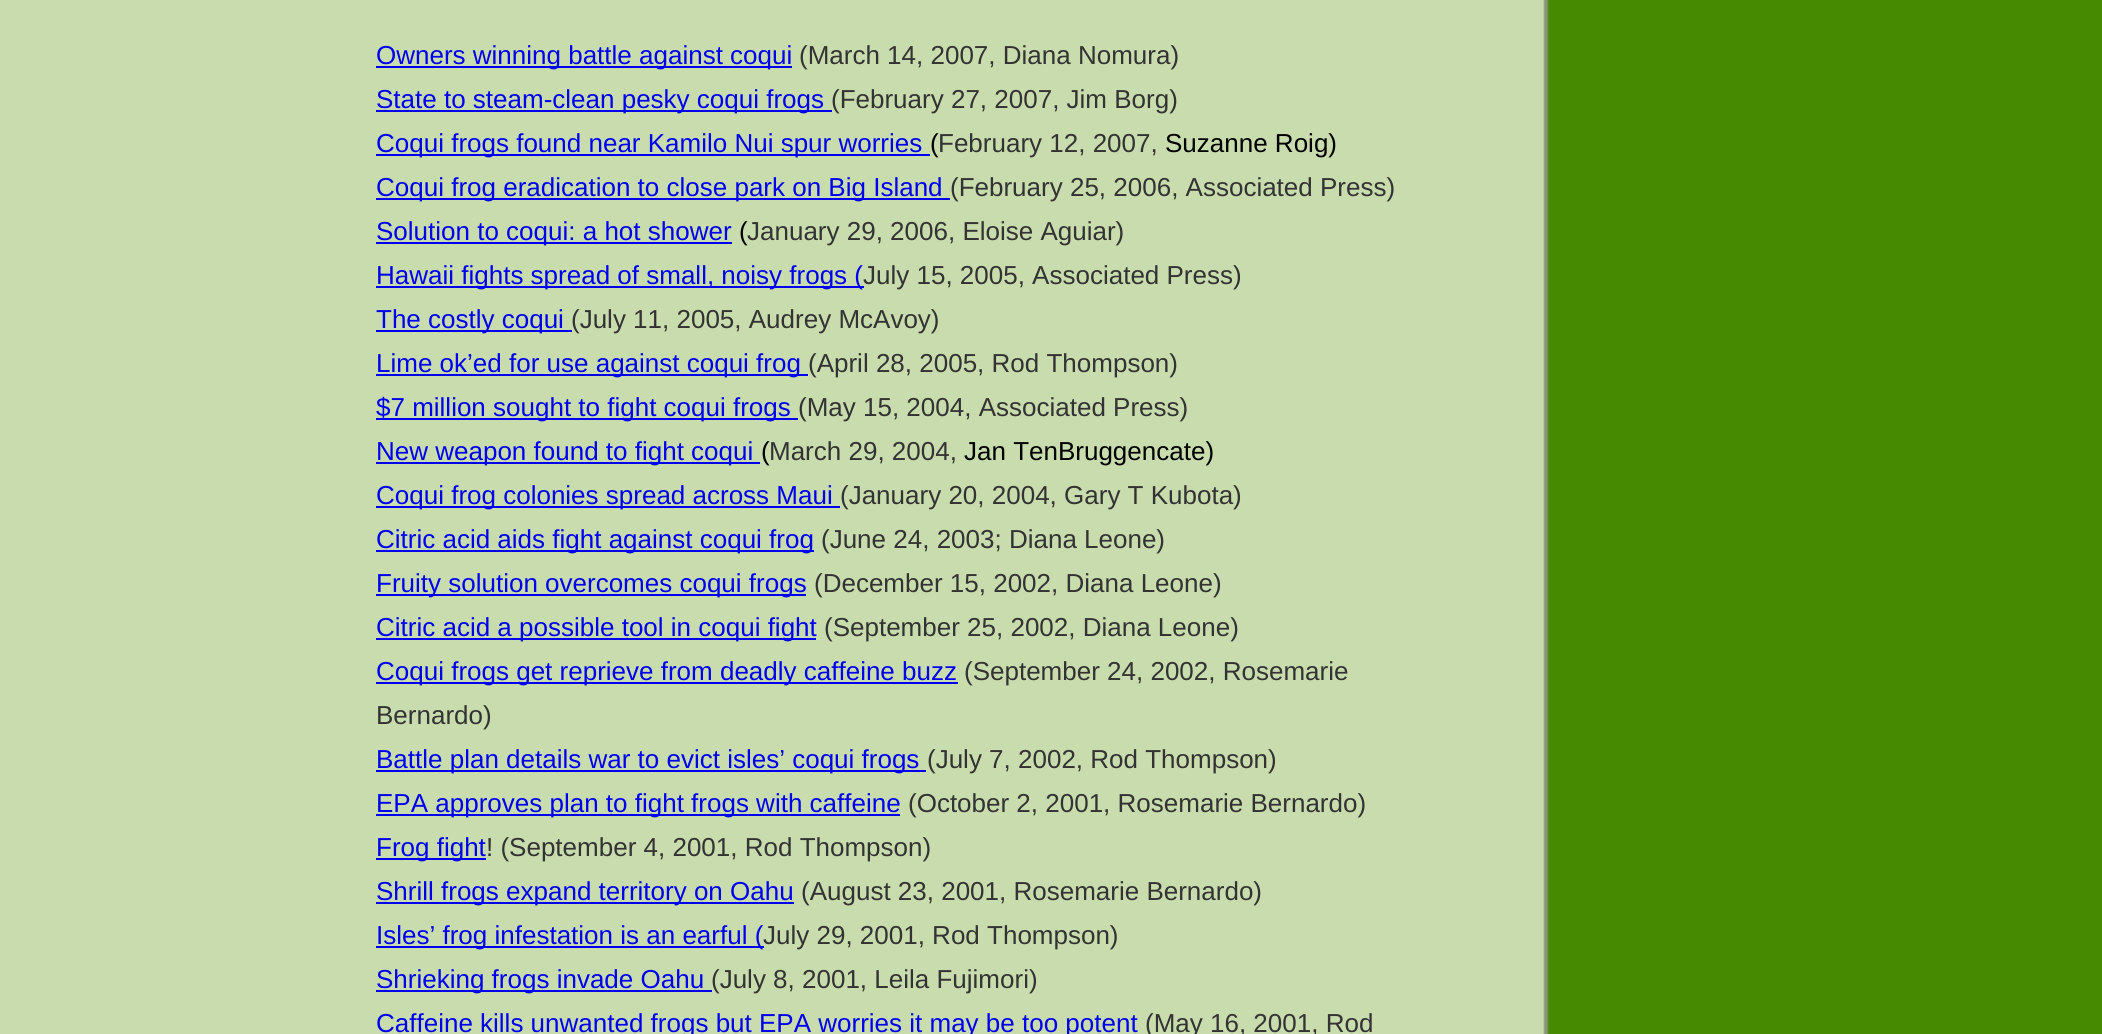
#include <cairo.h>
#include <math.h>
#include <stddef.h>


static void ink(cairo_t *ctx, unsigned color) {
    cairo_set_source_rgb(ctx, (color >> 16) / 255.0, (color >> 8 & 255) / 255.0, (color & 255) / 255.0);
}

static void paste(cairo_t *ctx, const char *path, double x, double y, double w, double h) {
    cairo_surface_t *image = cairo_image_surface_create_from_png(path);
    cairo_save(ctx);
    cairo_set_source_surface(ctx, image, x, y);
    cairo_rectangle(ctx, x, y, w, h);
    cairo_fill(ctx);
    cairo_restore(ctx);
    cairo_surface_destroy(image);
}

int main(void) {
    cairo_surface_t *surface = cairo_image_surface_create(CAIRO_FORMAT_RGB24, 2102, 1034);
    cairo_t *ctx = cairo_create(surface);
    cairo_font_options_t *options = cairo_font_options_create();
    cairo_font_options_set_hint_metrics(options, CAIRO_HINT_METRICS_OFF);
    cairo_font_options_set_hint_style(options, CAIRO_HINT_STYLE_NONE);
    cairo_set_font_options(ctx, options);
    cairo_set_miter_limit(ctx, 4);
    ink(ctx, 0x458A00);
    cairo_paint(ctx);
    ink(ctx, 0xC9DCAD);
    cairo_rectangle(ctx, 0, 0, 1506, 1034);
    cairo_fill(ctx);
    ink(ctx, 0x0000EE);
    cairo_rectangle(ctx, 376, 66, 416, 2);
    cairo_fill(ctx);
    cairo_select_font_face(ctx, "Liberation Sans", CAIRO_FONT_SLANT_NORMAL, CAIRO_FONT_WEIGHT_NORMAL);
    cairo_set_font_size(ctx, 26);
    cairo_move_to(ctx, 376, 64);
    cairo_show_text(ctx, "Owners winning battle against coqui");
    ink(ctx, 0x333333);
    cairo_move_to(ctx, 799, 64);
    cairo_show_text(ctx, "(March 14, 2007, Diana Nomura)");
    ink(ctx, 0x0000EE);
    cairo_rectangle(ctx, 376, 110, 456, 2);
    cairo_fill(ctx);
    cairo_move_to(ctx, 376, 108);
    cairo_show_text(ctx, "State to steam-clean pesky coqui frogs");
    ink(ctx, 0x333333);
    cairo_move_to(ctx, 831, 108);
    cairo_show_text(ctx, "(February 27, 2007, Jim Borg)");
    ink(ctx, 0x0000EE);
    cairo_rectangle(ctx, 376, 154, 554, 2);
    cairo_fill(ctx);
    cairo_move_to(ctx, 376, 152);
    cairo_show_text(ctx, "Coqui frogs found near Kamilo Nui spur worries");
    ink(ctx, 0x000000);
    cairo_move_to(ctx, 930, 152);
    cairo_show_text(ctx, "(");
    ink(ctx, 0x333333);
    cairo_move_to(ctx, 938, 152);
    cairo_show_text(ctx, "February 12, 2007,");
    ink(ctx, 0x000000);
    cairo_move_to(ctx, 1165, 152);
    cairo_show_text(ctx, "Suzanne Roig)");
    ink(ctx, 0x0000EE);
    cairo_rectangle(ctx, 376, 198, 574, 2);
    cairo_fill(ctx);
    cairo_move_to(ctx, 376, 196);
    cairo_show_text(ctx, "Coqui frog eradication to close park on Big Island");
    ink(ctx, 0x333333);
    cairo_move_to(ctx, 950, 196);
    cairo_show_text(ctx, "(February 25, 2006, Associated Press)");
    ink(ctx, 0x0000EE);
    cairo_rectangle(ctx, 376, 242, 356, 2);
    cairo_fill(ctx);
    cairo_move_to(ctx, 376, 240);
    cairo_show_text(ctx, "Solution to coqui: a hot shower");
    ink(ctx, 0x000000);
    cairo_move_to(ctx, 739, 240);
    cairo_show_text(ctx, "(");
    ink(ctx, 0x333333);
    cairo_move_to(ctx, 747, 240);
    cairo_show_text(ctx, "January 29, 2006, Eloise Aguiar)");
    ink(ctx, 0x0000EE);
    cairo_rectangle(ctx, 376, 286, 488, 2);
    cairo_fill(ctx);
    cairo_move_to(ctx, 376, 284);
    cairo_show_text(ctx, "Hawaii fights spread of small, noisy frogs (");
    ink(ctx, 0x333333);
    cairo_move_to(ctx, 863, 284);
    cairo_show_text(ctx, "July 15, 2005, Associated Press)");
    ink(ctx, 0x0000EE);
    cairo_rectangle(ctx, 376, 330, 196, 2);
    cairo_fill(ctx);
    cairo_move_to(ctx, 376, 328);
    cairo_show_text(ctx, "The costly coqui");
    ink(ctx, 0x333333);
    cairo_move_to(ctx, 571, 328);
    cairo_show_text(ctx, "(July 11, 2005, Audrey McAvoy)");
    ink(ctx, 0x0000EE);
    cairo_rectangle(ctx, 376, 374, 432, 2);
    cairo_fill(ctx);
    cairo_move_to(ctx, 376, 372);
    cairo_show_text(ctx, "Lime ok’ed for use against coqui frog");
    ink(ctx, 0x333333);
    cairo_move_to(ctx, 808, 372);
    cairo_show_text(ctx, "(April 28, 2005, Rod Thompson)");
    ink(ctx, 0x0000EE);
    cairo_rectangle(ctx, 376, 418, 422, 2);
    cairo_fill(ctx);
    cairo_move_to(ctx, 376, 416);
    cairo_show_text(ctx, "$7 million sought to fight coqui frogs");
    ink(ctx, 0x333333);
    cairo_move_to(ctx, 798, 416);
    cairo_show_text(ctx, "(May 15, 2004, Associated Press)");
    ink(ctx, 0x0000EE);
    cairo_rectangle(ctx, 376, 462, 384, 2);
    cairo_fill(ctx);
    cairo_move_to(ctx, 376, 460);
    cairo_show_text(ctx, "New weapon found to fight coqui");
    ink(ctx, 0x000000);
    cairo_move_to(ctx, 761, 460);
    cairo_show_text(ctx, "(");
    ink(ctx, 0x333333);
    cairo_move_to(ctx, 769, 460);
    cairo_show_text(ctx, "March 29, 2004,");
    ink(ctx, 0x000000);
    cairo_move_to(ctx, 964, 460);
    cairo_show_text(ctx, "Jan TenBruggencate)");
    ink(ctx, 0x0000EE);
    cairo_rectangle(ctx, 376, 506, 464, 2);
    cairo_fill(ctx);
    cairo_move_to(ctx, 376, 504);
    cairo_show_text(ctx, "Coqui frog colonies spread across Maui");
    ink(ctx, 0x333333);
    cairo_move_to(ctx, 840, 504);
    cairo_show_text(ctx, "(January 20, 2004, Gary T Kubota)");
    ink(ctx, 0x0000EE);
    cairo_rectangle(ctx, 376, 550, 438, 2);
    cairo_fill(ctx);
    cairo_move_to(ctx, 376, 548);
    cairo_show_text(ctx, "Citric acid aids fight against coqui frog");
    ink(ctx, 0x333333);
    cairo_move_to(ctx, 821, 548);
    cairo_show_text(ctx, "(June 24, 2003; Diana Leone)");
    ink(ctx, 0x0000EE);
    cairo_rectangle(ctx, 376, 594, 430, 2);
    cairo_fill(ctx);
    cairo_move_to(ctx, 376, 592);
    cairo_show_text(ctx, "Fruity solution overcomes coqui frogs");
    ink(ctx, 0x333333);
    cairo_move_to(ctx, 814, 592);
    cairo_show_text(ctx, "(December 15, 2002, Diana Leone)");
    ink(ctx, 0x0000EE);
    cairo_rectangle(ctx, 376, 638, 440, 2);
    cairo_fill(ctx);
    cairo_move_to(ctx, 376, 636);
    cairo_show_text(ctx, "Citric acid a possible tool in coqui fight");
    ink(ctx, 0x333333);
    cairo_move_to(ctx, 824, 636);
    cairo_show_text(ctx, "(September 25, 2002, Diana Leone)");
    ink(ctx, 0x0000EE);
    cairo_rectangle(ctx, 376, 682, 582, 2);
    cairo_fill(ctx);
    cairo_move_to(ctx, 376, 680);
    cairo_show_text(ctx, "Coqui frogs get reprieve from deadly caffeine buzz");
    ink(ctx, 0x333333);
    cairo_move_to(ctx, 964, 680);
    cairo_show_text(ctx, "(September 24, 2002, Rosemarie");
    cairo_move_to(ctx, 376, 724);
    cairo_show_text(ctx, "Bernardo)");
    ink(ctx, 0x0000EE);
    cairo_rectangle(ctx, 376, 770, 550, 2);
    cairo_fill(ctx);
    cairo_move_to(ctx, 376, 768);
    cairo_show_text(ctx, "Battle plan details war to evict isles’ coqui frogs");
    ink(ctx, 0x333333);
    cairo_move_to(ctx, 927, 768);
    cairo_show_text(ctx, "(July 7, 2002, Rod Thompson)");
    ink(ctx, 0x0000EE);
    cairo_rectangle(ctx, 376, 814, 524, 2);
    cairo_fill(ctx);
    cairo_move_to(ctx, 376, 812);
    cairo_show_text(ctx, "EPA approves plan to fight frogs with caffeine");
    ink(ctx, 0x333333);
    cairo_move_to(ctx, 908, 812);
    cairo_show_text(ctx, "(October 2, 2001, Rosemarie Bernardo)");
    ink(ctx, 0x0000EE);
    cairo_rectangle(ctx, 376, 858, 110, 2);
    cairo_fill(ctx);
    cairo_move_to(ctx, 376, 856);
    cairo_show_text(ctx, "Frog fight");
    ink(ctx, 0x333333);
    cairo_move_to(ctx, 486, 856);
    cairo_show_text(ctx, "! (September 4, 2001, Rod Thompson)");
    ink(ctx, 0x0000EE);
    cairo_rectangle(ctx, 376, 902, 418, 2);
    cairo_fill(ctx);
    cairo_move_to(ctx, 376, 900);
    cairo_show_text(ctx, "Shrill frogs expand territory on Oahu");
    ink(ctx, 0x333333);
    cairo_move_to(ctx, 801, 900);
    cairo_show_text(ctx, "(August 23, 2001, Rosemarie Bernardo)");
    ink(ctx, 0x0000EE);
    cairo_rectangle(ctx, 376, 946, 388, 2);
    cairo_fill(ctx);
    cairo_move_to(ctx, 376, 944);
    cairo_show_text(ctx, "Isles’ frog infestation is an earful (");
    ink(ctx, 0x333333);
    cairo_move_to(ctx, 763, 944);
    cairo_show_text(ctx, "July 29, 2001, Rod Thompson)");
    ink(ctx, 0x0000EE);
    cairo_rectangle(ctx, 376, 990, 336, 2);
    cairo_fill(ctx);
    cairo_move_to(ctx, 376, 988);
    cairo_show_text(ctx, "Shrieking frogs invade Oahu");
    ink(ctx, 0x333333);
    cairo_move_to(ctx, 711, 988);
    cairo_show_text(ctx, "(July 8, 2001, Leila Fujimori)");
    ink(ctx, 0x0000EE);
    cairo_move_to(ctx, 376, 1032);
    cairo_show_text(ctx, "Caffeine kills unwanted frogs but EPA worries it may be too potent");
    ink(ctx, 0x333333);
    cairo_move_to(ctx, 1145, 1032);
    cairo_show_text(ctx, "(May 16, 2001, Rod");
    paste(ctx, "media/1.png", 1506, 0, 43, 1034);
    cairo_surface_write_to_png(surface, "image.png");
    cairo_font_options_destroy(options);
    cairo_destroy(ctx);
    cairo_surface_destroy(surface);
    return 0;
}
